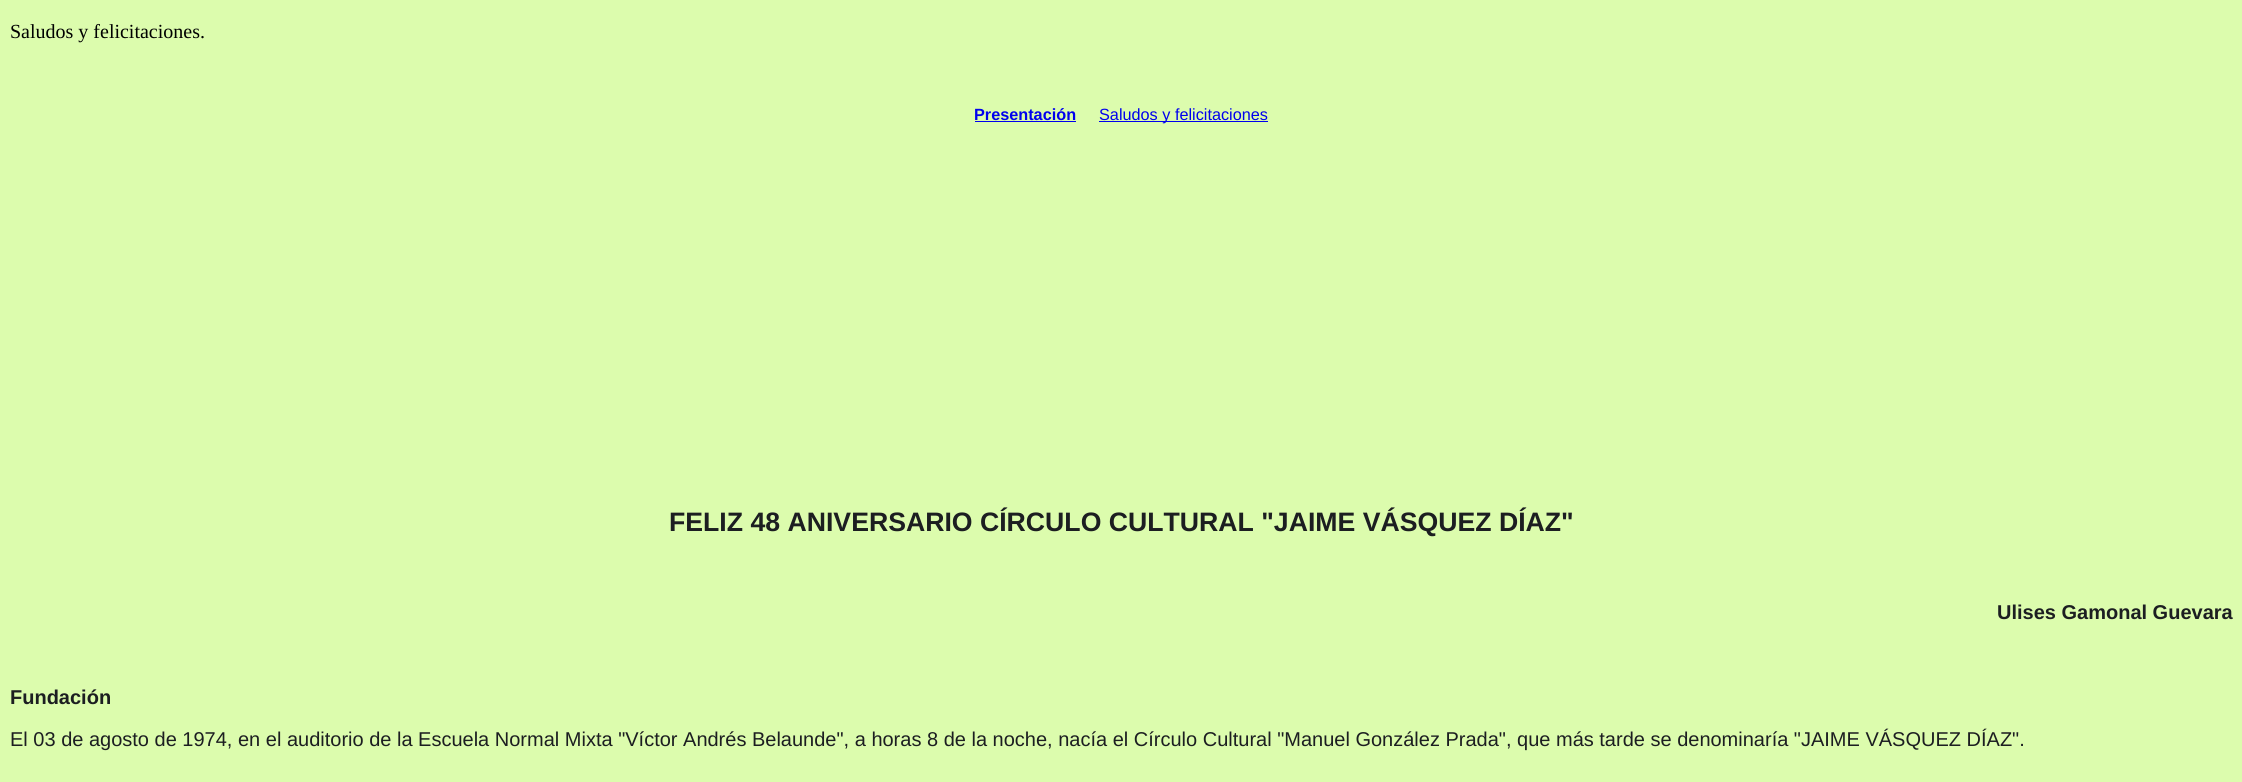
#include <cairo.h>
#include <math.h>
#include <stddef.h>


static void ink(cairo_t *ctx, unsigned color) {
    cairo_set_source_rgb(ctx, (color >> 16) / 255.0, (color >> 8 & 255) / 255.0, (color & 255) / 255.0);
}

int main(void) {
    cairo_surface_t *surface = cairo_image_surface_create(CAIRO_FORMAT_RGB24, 2242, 782);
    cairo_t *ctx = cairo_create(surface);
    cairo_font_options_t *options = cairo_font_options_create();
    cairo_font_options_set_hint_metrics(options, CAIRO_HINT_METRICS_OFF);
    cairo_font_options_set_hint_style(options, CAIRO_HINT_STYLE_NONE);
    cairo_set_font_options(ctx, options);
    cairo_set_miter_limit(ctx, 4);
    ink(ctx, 0xDCFCAD);
    cairo_paint(ctx);
    cairo_select_font_face(ctx, "Liberation Serif", CAIRO_FONT_SLANT_NORMAL, CAIRO_FONT_WEIGHT_NORMAL);
    cairo_set_font_size(ctx, 20);
    ink(ctx, 0x000000);
    cairo_move_to(ctx, 10, 38);
    cairo_show_text(ctx, "Saludos y felicitaciones.");
    cairo_select_font_face(ctx, "Liberation Sans", CAIRO_FONT_SLANT_NORMAL, CAIRO_FONT_WEIGHT_BOLD);
    cairo_set_font_size(ctx, 16.25);
    ink(ctx, 0x0000EE);
    cairo_move_to(ctx, 974, 120);
    cairo_show_text(ctx, "Presentación");
    cairo_rectangle(ctx, 975, 121, 101, 1);
    cairo_fill(ctx);
    cairo_rectangle(ctx, 1099, 121, 169, 1);
    cairo_fill(ctx);
    cairo_select_font_face(ctx, "Liberation Sans", CAIRO_FONT_SLANT_NORMAL, CAIRO_FONT_WEIGHT_NORMAL);
    cairo_move_to(ctx, 1099, 120);
    cairo_show_text(ctx, "Saludos y felicitaciones");
    cairo_select_font_face(ctx, "Liberation Sans", CAIRO_FONT_SLANT_NORMAL, CAIRO_FONT_WEIGHT_BOLD);
    cairo_set_font_size(ctx, 26.65);
    ink(ctx, 0x1C1E21);
    cairo_move_to(ctx, 669, 531);
    cairo_show_text(ctx, "FELIZ 48 ANIVERSARIO CÍRCULO CULTURAL \"JAIME VÁSQUEZ DÍAZ\"");
    cairo_set_font_size(ctx, 20);
    cairo_move_to(ctx, 1997, 619);
    cairo_show_text(ctx, "Ulises Gamonal Guevara");
    cairo_move_to(ctx, 10, 704);
    cairo_show_text(ctx, "Fundación");
    cairo_select_font_face(ctx, "Liberation Sans", CAIRO_FONT_SLANT_NORMAL, CAIRO_FONT_WEIGHT_NORMAL);
    cairo_move_to(ctx, 10, 746);
    cairo_show_text(ctx, "El 03 de agosto de 1974, en el auditorio de la Escuela Normal Mixta \"Víctor Andrés Belaunde\", a horas 8 de la noche, nacía el Círculo Cultural \"Manuel González Prada\", que más tarde se denominaría \"JAIME VÁSQUEZ DÍAZ\".");
    cairo_surface_write_to_png(surface, "image.png");
    cairo_font_options_destroy(options);
    cairo_destroy(ctx);
    cairo_surface_destroy(surface);
    return 0;
}
